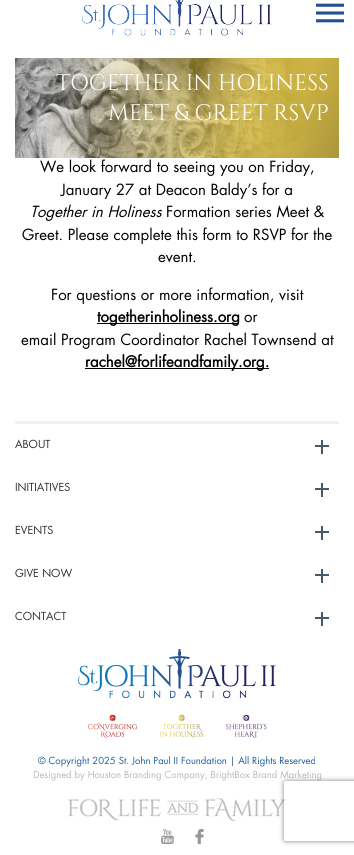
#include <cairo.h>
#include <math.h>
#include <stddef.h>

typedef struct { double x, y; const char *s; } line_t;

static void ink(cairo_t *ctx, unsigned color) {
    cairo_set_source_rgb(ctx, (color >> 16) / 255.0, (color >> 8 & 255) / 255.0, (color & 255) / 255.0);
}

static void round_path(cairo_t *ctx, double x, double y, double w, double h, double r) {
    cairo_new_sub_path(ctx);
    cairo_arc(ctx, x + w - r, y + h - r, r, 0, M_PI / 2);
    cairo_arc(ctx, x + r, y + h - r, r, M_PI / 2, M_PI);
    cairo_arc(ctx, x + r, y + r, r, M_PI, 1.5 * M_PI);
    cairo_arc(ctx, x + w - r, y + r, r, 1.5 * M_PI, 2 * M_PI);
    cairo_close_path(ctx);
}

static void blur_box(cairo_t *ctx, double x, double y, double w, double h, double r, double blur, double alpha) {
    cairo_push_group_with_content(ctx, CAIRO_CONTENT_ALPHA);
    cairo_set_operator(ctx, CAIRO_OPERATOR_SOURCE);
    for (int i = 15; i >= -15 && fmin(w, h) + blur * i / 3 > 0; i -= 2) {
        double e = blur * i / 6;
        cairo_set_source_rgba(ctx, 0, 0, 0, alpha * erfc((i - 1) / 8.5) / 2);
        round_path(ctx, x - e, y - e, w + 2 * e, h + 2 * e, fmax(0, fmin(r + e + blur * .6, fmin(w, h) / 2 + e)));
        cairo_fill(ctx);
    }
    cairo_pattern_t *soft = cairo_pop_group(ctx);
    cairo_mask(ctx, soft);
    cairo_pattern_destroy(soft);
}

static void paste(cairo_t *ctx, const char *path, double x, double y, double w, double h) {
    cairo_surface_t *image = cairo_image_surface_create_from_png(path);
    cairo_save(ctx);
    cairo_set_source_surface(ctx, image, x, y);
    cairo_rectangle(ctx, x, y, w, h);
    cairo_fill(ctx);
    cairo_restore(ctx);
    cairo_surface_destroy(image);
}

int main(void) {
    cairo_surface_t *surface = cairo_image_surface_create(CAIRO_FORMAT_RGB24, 354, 855);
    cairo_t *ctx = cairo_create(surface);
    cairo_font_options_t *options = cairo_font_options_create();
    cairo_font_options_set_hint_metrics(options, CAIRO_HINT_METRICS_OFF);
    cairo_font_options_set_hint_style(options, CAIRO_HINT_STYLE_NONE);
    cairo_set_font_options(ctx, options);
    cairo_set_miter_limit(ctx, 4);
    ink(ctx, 0xFFFFFF);
    cairo_paint(ctx);
    paste(ctx, "media/1.png", 82, 0, 190, 36);
    paste(ctx, "media/2.png", 316, 3, 28, 20);
    paste(ctx, "media/3.png", 15, 58, 324, 100);
    cairo_select_font_face(ctx, "Cinzel", CAIRO_FONT_SLANT_NORMAL, CAIRO_FONT_WEIGHT_NORMAL);
    cairo_set_font_size(ctx, 22.5);
    ink(ctx, 0xFFFFFF);
    cairo_move_to(ctx, 56, 90);
    cairo_show_text(ctx, "TOGETHER IN HOLINESS");
    cairo_move_to(ctx, 108, 120);
    cairo_show_text(ctx, "MEET & GREET RSVP");
    cairo_select_font_face(ctx, "Futura", CAIRO_FONT_SLANT_NORMAL, CAIRO_FONT_WEIGHT_NORMAL);
    cairo_set_font_size(ctx, 15);
    ink(ctx, 0x000000);
    cairo_move_to(ctx, 40, 172);
    cairo_show_text(ctx, "We look forward to seeing you on Friday,");
    cairo_move_to(ctx, 61, 195);
    cairo_show_text(ctx, "January 27 at Deacon Baldy’s for a");
    cairo_select_font_face(ctx, "Futura", CAIRO_FONT_SLANT_ITALIC, CAIRO_FONT_WEIGHT_NORMAL);
    cairo_move_to(ctx, 30, 217);
    cairo_show_text(ctx, "Together in Holiness");
    cairo_select_font_face(ctx, "Futura", CAIRO_FONT_SLANT_NORMAL, CAIRO_FONT_WEIGHT_NORMAL);
    {
        static const line_t items[] = {
            {166, 217, "Formation series Meet &"},
            {22, 240, "Greet. Please complete this form to RSVP for the"},
            {158, 262, "event."},
            {51, 300, "For questions or more information, visit"},
        };
        for (size_t i = 0; i < sizeof items / sizeof *items; i++) {
            cairo_move_to(ctx, items[i].x, items[i].y);
            cairo_show_text(ctx, items[i].s);
        }
    }
    cairo_rectangle(ctx, 97, 323, 142, 1);
    cairo_fill(ctx);
    cairo_select_font_face(ctx, "Futura", CAIRO_FONT_SLANT_NORMAL, CAIRO_FONT_WEIGHT_BOLD);
    cairo_move_to(ctx, 97, 322);
    cairo_show_text(ctx, "togetherinholiness.org");
    cairo_select_font_face(ctx, "Futura", CAIRO_FONT_SLANT_NORMAL, CAIRO_FONT_WEIGHT_NORMAL);
    cairo_move_to(ctx, 244, 322);
    cairo_show_text(ctx, "or");
    cairo_move_to(ctx, 21, 345);
    cairo_show_text(ctx, "email Program Coordinator Rachel Townsend at");
    cairo_rectangle(ctx, 85, 368, 184, 1);
    cairo_fill(ctx);
    cairo_select_font_face(ctx, "Futura", CAIRO_FONT_SLANT_NORMAL, CAIRO_FONT_WEIGHT_BOLD);
    cairo_move_to(ctx, 85, 367);
    cairo_show_text(ctx, "rachel@forlifeandfamily.org.");
    ink(ctx, 0xF2F2F2);
    cairo_rectangle(ctx, 15, 421, 324, 3);
    cairo_fill(ctx);
    cairo_select_font_face(ctx, "Futura", CAIRO_FONT_SLANT_NORMAL, CAIRO_FONT_WEIGHT_NORMAL);
    cairo_set_font_size(ctx, 10.75);
    ink(ctx, 0x2F302F);
    cairo_move_to(ctx, 15, 448);
    cairo_show_text(ctx, "ABOUT");
    ink(ctx, 0x44596B);
    cairo_rectangle(ctx, 321, 440, 2, 14);
    cairo_fill(ctx);
    cairo_rectangle(ctx, 315, 445, 14, 2);
    cairo_fill(ctx);
    ink(ctx, 0x2F302F);
    cairo_move_to(ctx, 15, 491);
    cairo_show_text(ctx, "INITIATIVES");
    ink(ctx, 0x44596B);
    cairo_rectangle(ctx, 321, 483, 2, 14);
    cairo_fill(ctx);
    cairo_rectangle(ctx, 315, 488, 14, 2);
    cairo_fill(ctx);
    ink(ctx, 0x2F302F);
    cairo_move_to(ctx, 15, 534);
    cairo_show_text(ctx, "EVENTS");
    ink(ctx, 0x44596B);
    cairo_rectangle(ctx, 321, 526, 2, 14);
    cairo_fill(ctx);
    cairo_rectangle(ctx, 315, 531, 14, 2);
    cairo_fill(ctx);
    ink(ctx, 0x2F302F);
    cairo_move_to(ctx, 15, 577);
    cairo_show_text(ctx, "GIVE NOW");
    ink(ctx, 0x44596B);
    cairo_rectangle(ctx, 321, 569, 2, 14);
    cairo_fill(ctx);
    cairo_rectangle(ctx, 315, 574, 14, 2);
    cairo_fill(ctx);
    ink(ctx, 0x2F302F);
    cairo_move_to(ctx, 15, 620);
    cairo_show_text(ctx, "CONTACT");
    ink(ctx, 0x44596B);
    cairo_rectangle(ctx, 321, 612, 2, 14);
    cairo_fill(ctx);
    cairo_rectangle(ctx, 315, 617, 14, 2);
    cairo_fill(ctx);
    paste(ctx, "media/4.png", 78, 649, 198, 89);
    cairo_set_font_size(ctx, 9.5);
    ink(ctx, 0x1C5C9C);
    cairo_move_to(ctx, 38, 764);
    cairo_show_text(ctx, "© Copyright 2025 St. John Paul II Foundation | All Rights Reserved");
    ink(ctx, 0xB8B8B8);
    cairo_move_to(ctx, 33, 778);
    cairo_show_text(ctx, "Designed by Houston Branding Company, BrightBox Brand Marketing");
    paste(ctx, "media/5.png", 68, 798, 218, 23);
    paste(ctx, "media/6.png", 161, 829, 13, 15);
    paste(ctx, "media/7.png", 195, 829, 9, 15);
    cairo_save(ctx);
    cairo_set_fill_rule(ctx, CAIRO_FILL_RULE_EVEN_ODD);
    cairo_new_path(ctx);
    cairo_move_to(ctx, 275, 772);
    cairo_line_to(ctx, 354, 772);
    cairo_line_to(ctx, 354, 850);
    cairo_line_to(ctx, 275, 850);
    cairo_close_path(ctx);
    cairo_move_to(ctx, 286, 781);
    cairo_line_to(ctx, 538, 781);
    cairo_curve_to(ctx, 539, 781, 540, 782, 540, 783);
    cairo_line_to(ctx, 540, 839);
    cairo_curve_to(ctx, 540, 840, 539, 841, 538, 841);
    cairo_line_to(ctx, 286, 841);
    cairo_curve_to(ctx, 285, 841, 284, 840, 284, 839);
    cairo_line_to(ctx, 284, 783);
    cairo_curve_to(ctx, 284, 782, 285, 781, 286, 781);
    cairo_close_path(ctx);
    cairo_clip(ctx);
    ink(ctx, 0x808080);
    blur_box(ctx, 284, 781, 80, 60, 2, 2.5, 1);
    cairo_restore(ctx);
    cairo_surface_write_to_png(surface, "image.png");
    cairo_font_options_destroy(options);
    cairo_destroy(ctx);
    cairo_surface_destroy(surface);
    return 0;
}
